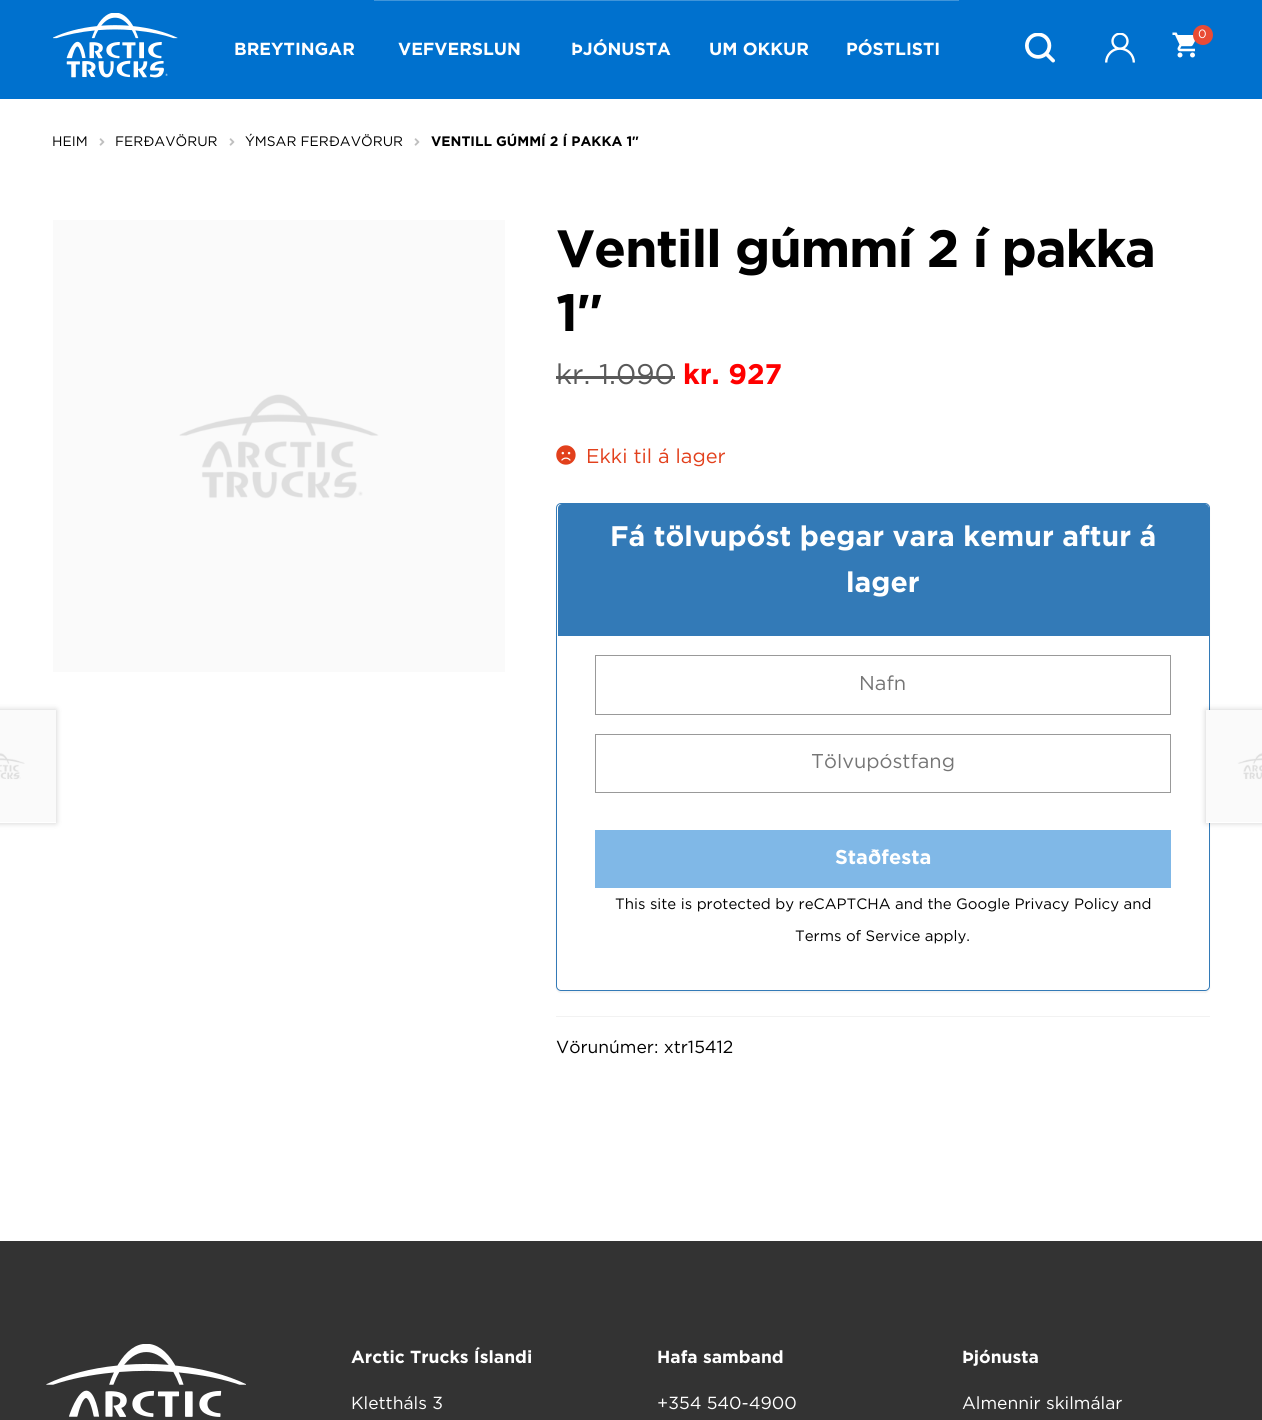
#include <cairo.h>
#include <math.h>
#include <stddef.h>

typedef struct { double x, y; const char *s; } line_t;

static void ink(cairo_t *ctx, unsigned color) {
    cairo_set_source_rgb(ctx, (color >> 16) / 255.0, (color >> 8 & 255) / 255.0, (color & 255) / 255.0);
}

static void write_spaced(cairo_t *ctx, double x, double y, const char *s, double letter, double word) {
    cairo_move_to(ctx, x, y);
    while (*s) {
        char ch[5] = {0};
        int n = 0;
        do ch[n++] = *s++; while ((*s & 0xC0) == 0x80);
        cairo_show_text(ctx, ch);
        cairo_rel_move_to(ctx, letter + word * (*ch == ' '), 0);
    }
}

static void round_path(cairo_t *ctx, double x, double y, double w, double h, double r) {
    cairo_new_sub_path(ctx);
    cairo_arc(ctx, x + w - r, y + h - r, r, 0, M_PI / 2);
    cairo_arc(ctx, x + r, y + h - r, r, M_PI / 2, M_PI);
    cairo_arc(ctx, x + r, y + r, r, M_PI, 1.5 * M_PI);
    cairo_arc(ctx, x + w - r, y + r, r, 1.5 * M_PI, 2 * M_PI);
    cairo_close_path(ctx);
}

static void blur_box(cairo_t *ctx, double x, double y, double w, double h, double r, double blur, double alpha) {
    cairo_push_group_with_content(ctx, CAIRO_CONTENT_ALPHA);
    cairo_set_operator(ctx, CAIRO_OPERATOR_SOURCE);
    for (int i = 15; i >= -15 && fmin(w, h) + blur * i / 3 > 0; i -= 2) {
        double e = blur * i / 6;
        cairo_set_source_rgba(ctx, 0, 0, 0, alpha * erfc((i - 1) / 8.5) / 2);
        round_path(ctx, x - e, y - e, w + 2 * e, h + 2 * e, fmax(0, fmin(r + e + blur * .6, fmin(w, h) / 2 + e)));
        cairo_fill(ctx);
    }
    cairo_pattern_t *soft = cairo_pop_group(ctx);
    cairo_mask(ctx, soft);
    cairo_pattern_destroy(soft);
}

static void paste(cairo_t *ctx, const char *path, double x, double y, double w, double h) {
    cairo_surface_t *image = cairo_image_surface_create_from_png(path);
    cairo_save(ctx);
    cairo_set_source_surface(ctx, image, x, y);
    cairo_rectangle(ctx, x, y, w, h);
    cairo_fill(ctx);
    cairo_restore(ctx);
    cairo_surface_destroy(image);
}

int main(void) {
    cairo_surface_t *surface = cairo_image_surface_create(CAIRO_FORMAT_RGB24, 1262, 1420);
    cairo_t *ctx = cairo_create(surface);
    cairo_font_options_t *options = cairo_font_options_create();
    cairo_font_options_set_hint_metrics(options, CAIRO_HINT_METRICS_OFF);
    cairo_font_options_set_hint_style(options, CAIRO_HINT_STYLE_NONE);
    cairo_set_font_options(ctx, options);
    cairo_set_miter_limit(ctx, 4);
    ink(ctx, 0xFFFFFF);
    cairo_paint(ctx);
    ink(ctx, 0x0071CE);
    cairo_rectangle(ctx, 0, 0, 1262, 99);
    cairo_fill(ctx);
    paste(ctx, "media/1.png", 53, 13, 125, 65);
    paste(ctx, "media/2.png", 1025, 33, 30, 30);
    paste(ctx, "media/3.png", 1105, 33, 30, 30);
    paste(ctx, "media/4.png", 1172, 32, 23, 26);
    ink(ctx, 0xE94B35);
    cairo_arc(ctx, 1203, 35, 10, 0, 2 * M_PI);
    cairo_fill(ctx);
    cairo_select_font_face(ctx, "Gotham", CAIRO_FONT_SLANT_NORMAL, CAIRO_FONT_WEIGHT_NORMAL);
    cairo_set_font_size(ctx, 12);
    ink(ctx, 0xFFFFFF);
    cairo_move_to(ctx, 1198, 38);
    cairo_show_text(ctx, "0");
    cairo_select_font_face(ctx, "Gotham", CAIRO_FONT_SLANT_NORMAL, CAIRO_FONT_WEIGHT_BOLD);
    cairo_set_font_size(ctx, 17.5);
    cairo_move_to(ctx, 234, 55);
    cairo_show_text(ctx, "BREYTINGAR");
    ink(ctx, 0x4095DA);
    cairo_rectangle(ctx, 374, 0, 585, 1);
    cairo_fill(ctx);
    ink(ctx, 0xFFFFFF);
    {
        static const line_t items[] = {
            {398, 55, "VEFVERSLUN"},
            {571, 55, "ÞJÓNUSTA"},
            {709, 55, "UM OKKUR"},
            {846, 55, "PÓSTLISTI"},
        };
        for (size_t i = 0; i < sizeof items / sizeof *items; i++) {
            cairo_move_to(ctx, items[i].x, items[i].y);
            cairo_show_text(ctx, items[i].s);
        }
    }
    cairo_select_font_face(ctx, "Gotham", CAIRO_FONT_SLANT_NORMAL, CAIRO_FONT_WEIGHT_NORMAL);
    cairo_set_font_size(ctx, 13.75);
    ink(ctx, 0x000000);
    cairo_move_to(ctx, 52, 146);
    cairo_show_text(ctx, "HEIM");
    paste(ctx, "media/5.png", 99, 138, 6, 8);
    cairo_move_to(ctx, 115, 146);
    cairo_show_text(ctx, "FERÐAVÖRUR");
    paste(ctx, "media/5.png", 229, 138, 6, 8);
    cairo_move_to(ctx, 245, 146);
    cairo_show_text(ctx, "ÝMSAR FERÐAVÖRUR");
    paste(ctx, "media/5.png", 414, 138, 6, 8);
    cairo_select_font_face(ctx, "Gotham", CAIRO_FONT_SLANT_NORMAL, CAIRO_FONT_WEIGHT_BOLD);
    cairo_move_to(ctx, 431, 146);
    cairo_show_text(ctx, "VENTILL GÚMMÍ 2 Í PAKKA 1");
    cairo_select_font_face(ctx, "Liberation Sans", CAIRO_FONT_SLANT_NORMAL, CAIRO_FONT_WEIGHT_BOLD);
    cairo_move_to(ctx, 632, 146);
    cairo_show_text(ctx, "″");
    paste(ctx, "media/6.png", 53, 220, 452, 452);
    cairo_select_font_face(ctx, "Gotham", CAIRO_FONT_SLANT_NORMAL, CAIRO_FONT_WEIGHT_BOLD);
    cairo_set_font_size(ctx, 52.4);
    write_spaced(ctx, 556, 267, "Ventill gúmmí 2 í pakka", -1.25, 0);
    write_spaced(ctx, 556, 331, "1", -1.25, 0);
    cairo_select_font_face(ctx, "Liberation Sans", CAIRO_FONT_SLANT_NORMAL, CAIRO_FONT_WEIGHT_BOLD);
    write_spaced(ctx, 577, 331, "″", -1.25, 0);
    cairo_select_font_face(ctx, "Gotham", CAIRO_FONT_SLANT_NORMAL, CAIRO_FONT_WEIGHT_NORMAL);
    cairo_set_font_size(ctx, 28.3);
    ink(ctx, 0x595959);
    cairo_move_to(ctx, 556, 384);
    cairo_show_text(ctx, "kr. 1.090");
    cairo_rectangle(ctx, 556, 376, 119, 3);
    cairo_fill(ctx);
    cairo_select_font_face(ctx, "Gotham", CAIRO_FONT_SLANT_NORMAL, CAIRO_FONT_WEIGHT_BOLD);
    ink(ctx, 0xFF0000);
    cairo_move_to(ctx, 683, 384);
    cairo_show_text(ctx, "kr. 927");
    paste(ctx, "media/7.png", 556, 445, 20, 20);
    cairo_select_font_face(ctx, "Gotham", CAIRO_FONT_SLANT_NORMAL, CAIRO_FONT_WEIGHT_NORMAL);
    cairo_set_font_size(ctx, 20);
    ink(ctx, 0xE2401C);
    cairo_move_to(ctx, 586, 463);
    cairo_show_text(ctx, "Ekki til á lager");
    cairo_save(ctx);
    cairo_set_fill_rule(ctx, CAIRO_FILL_RULE_EVEN_ODD);
    cairo_new_path(ctx);
    cairo_move_to(ctx, 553, 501);
    cairo_line_to(ctx, 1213, 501);
    cairo_line_to(ctx, 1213, 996);
    cairo_line_to(ctx, 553, 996);
    cairo_close_path(ctx);
    cairo_move_to(ctx, 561, 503);
    cairo_line_to(ctx, 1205, 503);
    cairo_curve_to(ctx, 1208, 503, 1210, 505, 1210, 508);
    cairo_line_to(ctx, 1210, 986);
    cairo_curve_to(ctx, 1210, 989, 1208, 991, 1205, 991);
    cairo_line_to(ctx, 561, 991);
    cairo_curve_to(ctx, 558, 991, 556, 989, 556, 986);
    cairo_line_to(ctx, 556, 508);
    cairo_curve_to(ctx, 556, 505, 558, 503, 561, 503);
    cairo_close_path(ctx);
    cairo_clip(ctx);
    ink(ctx, 0x000000);
    blur_box(ctx, 556, 504, 654, 489, 5, 0.5, 0.05);
    cairo_restore(ctx);
    round_path(ctx, 556.5, 503.5, 653, 487, 4.5);
    ink(ctx, 0x337AB7);
    cairo_set_line_width(ctx, 1);
    cairo_stroke(ctx);
    cairo_new_path(ctx);
    cairo_move_to(ctx, 562, 504);
    cairo_line_to(ctx, 1205, 504);
    cairo_curve_to(ctx, 1207, 504, 1209, 506, 1209, 508);
    cairo_line_to(ctx, 1209, 636);
    cairo_line_to(ctx, 558, 636);
    cairo_line_to(ctx, 558, 508);
    cairo_curve_to(ctx, 558, 506, 560, 504, 562, 504);
    cairo_close_path(ctx);
    cairo_fill(ctx);
    cairo_select_font_face(ctx, "Gotham", CAIRO_FONT_SLANT_NORMAL, CAIRO_FONT_WEIGHT_BOLD);
    cairo_set_font_size(ctx, 28.3);
    ink(ctx, 0xFFFFFF);
    cairo_move_to(ctx, 610, 546);
    cairo_show_text(ctx, "Fá tölvupóst þegar vara kemur aftur á");
    cairo_move_to(ctx, 846, 592);
    cairo_show_text(ctx, "lager");
    cairo_rectangle(ctx, 595.5, 655.5, 575, 59);
    ink(ctx, 0x999999);
    cairo_stroke(ctx);
    cairo_select_font_face(ctx, "Gotham", CAIRO_FONT_SLANT_NORMAL, CAIRO_FONT_WEIGHT_NORMAL);
    cairo_set_font_size(ctx, 20);
    ink(ctx, 0x757575);
    cairo_move_to(ctx, 859, 690);
    cairo_show_text(ctx, "Nafn");
    cairo_rectangle(ctx, 595.5, 734.5, 575, 58);
    ink(ctx, 0x999999);
    cairo_stroke(ctx);
    cairo_save(ctx);
    cairo_rectangle(ctx, 608, 754, 550, 20);
    cairo_clip(ctx);
    ink(ctx, 0x757575);
    cairo_move_to(ctx, 811, 768);
    cairo_show_text(ctx, "Tölvupóstfang");
    cairo_restore(ctx);
    ink(ctx, 0x80B8E7);
    cairo_rectangle(ctx, 595, 830, 576, 58);
    cairo_fill(ctx);
    cairo_select_font_face(ctx, "Gotham", CAIRO_FONT_SLANT_NORMAL, CAIRO_FONT_WEIGHT_BOLD);
    ink(ctx, 0xFFFFFF);
    cairo_move_to(ctx, 835, 864);
    cairo_show_text(ctx, "Staðfesta");
    cairo_select_font_face(ctx, "Gotham", CAIRO_FONT_SLANT_NORMAL, CAIRO_FONT_WEIGHT_NORMAL);
    cairo_set_font_size(ctx, 15);
    ink(ctx, 0x000000);
    cairo_move_to(ctx, 615, 909);
    cairo_show_text(ctx, "This site is protected by reCAPTCHA and the Google Privacy Policy and");
    cairo_move_to(ctx, 795, 941);
    cairo_show_text(ctx, "Terms of Service apply.");
    ink(ctx, 0xF2F2F2);
    cairo_rectangle(ctx, 556, 1016, 654, 1);
    cairo_fill(ctx);
    cairo_set_font_size(ctx, 17.5);
    ink(ctx, 0x000000);
    cairo_move_to(ctx, 556, 1053);
    cairo_show_text(ctx, "Vörunúmer: xtr15412");
    ink(ctx, 0x000000);
    blur_box(ctx, -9, 710, 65, 113, 0, 3, 0.2);
    ink(ctx, 0xFFFFFF);
    cairo_rectangle(ctx, 0, 822, 56, 1);
    cairo_fill(ctx);
    paste(ctx, "media/8.png", 0, 710, 56, 112);
    ink(ctx, 0x000000);
    blur_box(ctx, 1206, 710, 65, 113, 0, 3, 0.2);
    ink(ctx, 0xFFFFFF);
    cairo_rectangle(ctx, 1206, 822, 56, 1);
    cairo_fill(ctx);
    paste(ctx, "media/9.png", 1206, 710, 56, 112);
    ink(ctx, 0x333333);
    cairo_rectangle(ctx, 0, 1241, 1262, 179);
    cairo_fill(ctx);
    paste(ctx, "media/10.png", 46, 1344, 200, 73);
    cairo_select_font_face(ctx, "Gotham", CAIRO_FONT_SLANT_NORMAL, CAIRO_FONT_WEIGHT_BOLD);
    ink(ctx, 0xFFFFFF);
    cairo_move_to(ctx, 351, 1363);
    cairo_show_text(ctx, "Arctic Trucks Íslandi");
    cairo_select_font_face(ctx, "Gotham", CAIRO_FONT_SLANT_NORMAL, CAIRO_FONT_WEIGHT_NORMAL);
    cairo_move_to(ctx, 351, 1409);
    cairo_show_text(ctx, "Klettháls 3");
    cairo_select_font_face(ctx, "Gotham", CAIRO_FONT_SLANT_NORMAL, CAIRO_FONT_WEIGHT_BOLD);
    cairo_move_to(ctx, 657, 1363);
    cairo_show_text(ctx, "Hafa samband");
    cairo_select_font_face(ctx, "Gotham", CAIRO_FONT_SLANT_NORMAL, CAIRO_FONT_WEIGHT_NORMAL);
    cairo_move_to(ctx, 657, 1409);
    cairo_show_text(ctx, "+354 540-4900");
    cairo_select_font_face(ctx, "Gotham", CAIRO_FONT_SLANT_NORMAL, CAIRO_FONT_WEIGHT_BOLD);
    cairo_move_to(ctx, 962, 1363);
    cairo_show_text(ctx, "Þjónusta");
    cairo_select_font_face(ctx, "Gotham", CAIRO_FONT_SLANT_NORMAL, CAIRO_FONT_WEIGHT_NORMAL);
    cairo_move_to(ctx, 962, 1409);
    cairo_show_text(ctx, "Almennir skilmálar");
    cairo_surface_write_to_png(surface, "image.png");
    cairo_font_options_destroy(options);
    cairo_destroy(ctx);
    cairo_surface_destroy(surface);
    return 0;
}
